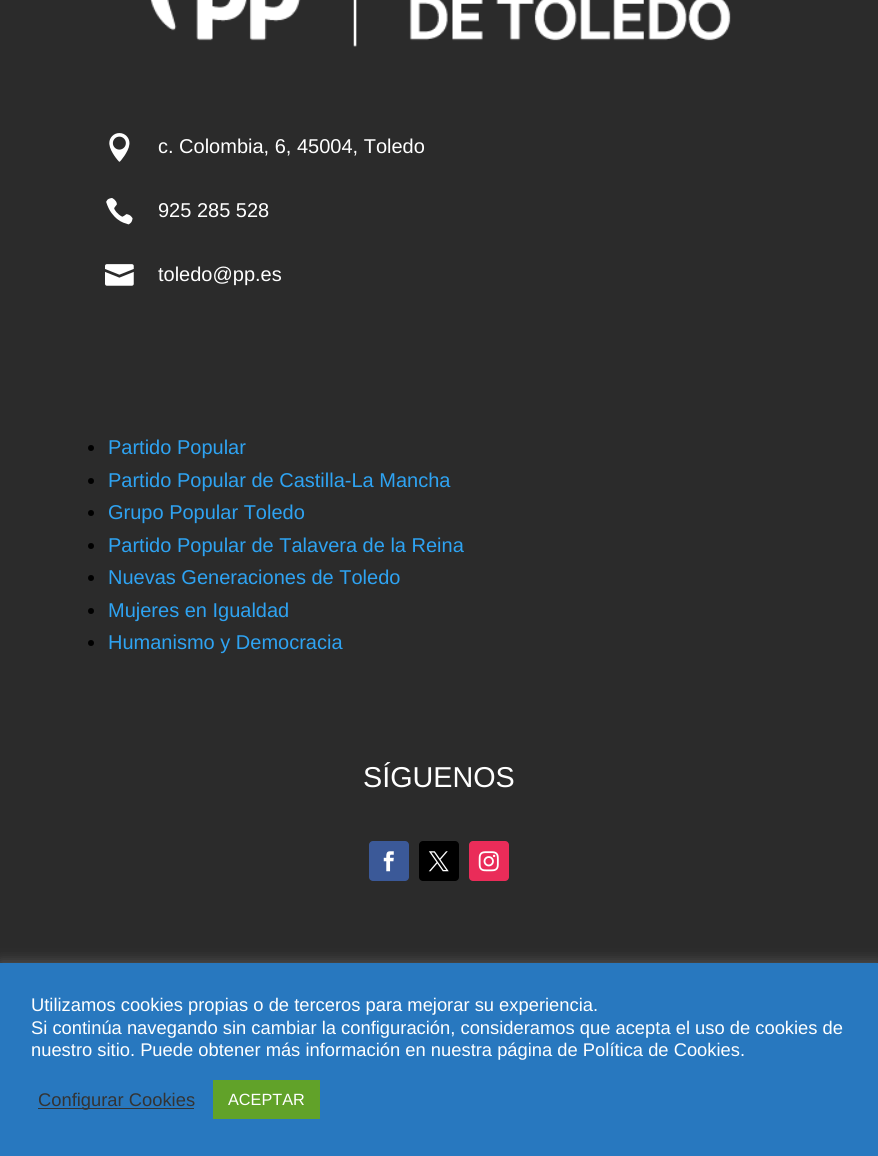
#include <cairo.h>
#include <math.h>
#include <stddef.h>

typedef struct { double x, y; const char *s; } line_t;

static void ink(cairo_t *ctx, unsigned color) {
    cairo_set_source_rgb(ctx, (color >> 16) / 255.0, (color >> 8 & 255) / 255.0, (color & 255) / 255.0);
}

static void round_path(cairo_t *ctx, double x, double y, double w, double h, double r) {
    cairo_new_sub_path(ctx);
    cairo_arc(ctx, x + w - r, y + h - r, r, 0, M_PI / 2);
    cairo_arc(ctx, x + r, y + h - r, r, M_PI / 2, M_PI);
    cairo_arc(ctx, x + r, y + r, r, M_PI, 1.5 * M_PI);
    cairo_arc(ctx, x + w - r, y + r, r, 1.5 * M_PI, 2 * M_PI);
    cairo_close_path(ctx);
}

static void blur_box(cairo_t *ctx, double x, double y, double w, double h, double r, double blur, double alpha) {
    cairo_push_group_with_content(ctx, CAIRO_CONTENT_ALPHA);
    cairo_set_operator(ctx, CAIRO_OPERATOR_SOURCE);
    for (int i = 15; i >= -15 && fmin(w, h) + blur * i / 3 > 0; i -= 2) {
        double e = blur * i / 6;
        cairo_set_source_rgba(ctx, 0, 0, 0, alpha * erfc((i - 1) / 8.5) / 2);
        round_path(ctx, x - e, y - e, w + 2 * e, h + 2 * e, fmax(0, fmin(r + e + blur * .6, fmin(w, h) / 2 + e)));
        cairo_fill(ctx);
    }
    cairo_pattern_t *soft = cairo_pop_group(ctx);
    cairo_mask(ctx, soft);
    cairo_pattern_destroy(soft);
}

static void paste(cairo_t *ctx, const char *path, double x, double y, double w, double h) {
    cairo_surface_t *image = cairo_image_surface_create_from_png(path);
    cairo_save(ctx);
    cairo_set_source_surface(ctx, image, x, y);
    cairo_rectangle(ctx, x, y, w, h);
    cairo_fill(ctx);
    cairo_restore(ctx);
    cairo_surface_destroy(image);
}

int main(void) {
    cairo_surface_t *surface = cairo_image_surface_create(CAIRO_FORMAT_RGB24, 878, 1156);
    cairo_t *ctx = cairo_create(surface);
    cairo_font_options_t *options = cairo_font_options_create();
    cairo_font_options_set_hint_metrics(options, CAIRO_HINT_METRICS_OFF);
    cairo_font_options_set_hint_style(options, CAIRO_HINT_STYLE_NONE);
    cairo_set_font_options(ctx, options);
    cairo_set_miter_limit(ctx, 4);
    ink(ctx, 0x2B2B2B);
    cairo_paint(ctx);
    paste(ctx, "media/1.png", 150, 0, 581, 47);
    paste(ctx, "media/2.png", 109, 133, 21, 29);
    cairo_select_font_face(ctx, "Liberation Sans", CAIRO_FONT_SLANT_NORMAL, CAIRO_FONT_WEIGHT_NORMAL);
    cairo_set_font_size(ctx, 20);
    ink(ctx, 0xFFFFFF);
    cairo_move_to(ctx, 158, 153);
    cairo_show_text(ctx, "c. Colombia, 6, 45004, Toledo");
    paste(ctx, "media/3.png", 106, 198, 27, 27);
    cairo_move_to(ctx, 158, 217);
    cairo_show_text(ctx, "925 285 528");
    paste(ctx, "media/4.png", 105, 264, 29, 22);
    cairo_move_to(ctx, 158, 281);
    cairo_show_text(ctx, "toledo@pp.es");
    ink(ctx, 0x000000);
    cairo_new_path(ctx);
    cairo_arc(ctx, 91, 448, 3, 0, 2 * M_PI);
    cairo_fill(ctx);
    ink(ctx, 0x2EA3F2);
    cairo_move_to(ctx, 108, 454);
    cairo_show_text(ctx, "Partido Popular");
    ink(ctx, 0x000000);
    cairo_new_path(ctx);
    cairo_arc(ctx, 91, 481, 3, 0, 2 * M_PI);
    cairo_fill(ctx);
    ink(ctx, 0x2EA3F2);
    cairo_move_to(ctx, 108, 487);
    cairo_show_text(ctx, "Partido Popular de Castilla-La Mancha");
    ink(ctx, 0x000000);
    cairo_new_path(ctx);
    cairo_arc(ctx, 91, 513, 3, 0, 2 * M_PI);
    cairo_fill(ctx);
    ink(ctx, 0x2EA3F2);
    cairo_move_to(ctx, 108, 519);
    cairo_show_text(ctx, "Grupo Popular Toledo");
    ink(ctx, 0x000000);
    cairo_new_path(ctx);
    cairo_arc(ctx, 91, 546, 3, 0, 2 * M_PI);
    cairo_fill(ctx);
    ink(ctx, 0x2EA3F2);
    cairo_move_to(ctx, 108, 552);
    cairo_show_text(ctx, "Partido Popular de Talavera de la Reina");
    ink(ctx, 0x000000);
    cairo_new_path(ctx);
    cairo_arc(ctx, 91, 578, 3, 0, 2 * M_PI);
    cairo_fill(ctx);
    ink(ctx, 0x2EA3F2);
    cairo_move_to(ctx, 108, 584);
    cairo_show_text(ctx, "Nuevas Generaciones de Toledo");
    ink(ctx, 0x000000);
    cairo_new_path(ctx);
    cairo_arc(ctx, 91, 611, 3, 0, 2 * M_PI);
    cairo_fill(ctx);
    ink(ctx, 0x2EA3F2);
    cairo_move_to(ctx, 108, 617);
    cairo_show_text(ctx, "Mujeres en Igualdad");
    ink(ctx, 0x000000);
    cairo_new_path(ctx);
    cairo_arc(ctx, 91, 643, 3, 0, 2 * M_PI);
    cairo_fill(ctx);
    ink(ctx, 0x2EA3F2);
    cairo_move_to(ctx, 108, 649);
    cairo_show_text(ctx, "Humanismo y Democracia");
    cairo_set_font_size(ctx, 28.75);
    ink(ctx, 0xFFFFFF);
    cairo_move_to(ctx, 363, 787);
    cairo_show_text(ctx, "SÍGUENOS");
    ink(ctx, 0x3B5998);
    round_path(ctx, 369, 841, 40, 40, 4);
    cairo_fill(ctx);
    paste(ctx, "media/5.png", 383, 851, 11, 21);
    ink(ctx, 0x000000);
    round_path(ctx, 419, 841, 40, 40, 4);
    cairo_fill(ctx);
    paste(ctx, "media/6.png", 428, 851, 21, 21);
    ink(ctx, 0xEA2C59);
    round_path(ctx, 469, 841, 40, 40, 4);
    cairo_fill(ctx);
    paste(ctx, "media/7.png", 478, 851, 21, 21);
    ink(ctx, 0xACABAB);
    blur_box(ctx, 0, 961, 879, 194, 0, 6, 0.3);
    ink(ctx, 0x2878BF);
    cairo_rectangle(ctx, 0, 963, 878, 193);
    cairo_fill(ctx);
    cairo_set_font_size(ctx, 18.35);
    ink(ctx, 0xFFFFFF);
    {
        static const line_t items[] = {
            {31, 1011, "Utilizamos cookies propias o de terceros para mejorar su experiencia."},
            {31, 1034, "Si continúa navegando sin cambiar la configuración, consideramos que acepta el uso de cookies de"},
            {31, 1056, "nuestro sitio. Puede obtener más información en nuestra página de Política de Cookies."},
        };
        for (size_t i = 0; i < sizeof items / sizeof *items; i++) {
            cairo_move_to(ctx, items[i].x, items[i].y);
            cairo_show_text(ctx, items[i].s);
        }
    }
    ink(ctx, 0x333333);
    cairo_rectangle(ctx, 38, 1108, 156, 1);
    cairo_fill(ctx);
    cairo_move_to(ctx, 38, 1106);
    cairo_show_text(ctx, "Configurar Cookies");
    ink(ctx, 0x61A229);
    cairo_rectangle(ctx, 213, 1080, 107, 39);
    cairo_fill(ctx);
    cairo_set_font_size(ctx, 16.25);
    ink(ctx, 0xFFFFFF);
    cairo_move_to(ctx, 228, 1105);
    cairo_show_text(ctx, "ACEPTAR");
    cairo_surface_write_to_png(surface, "image.png");
    cairo_font_options_destroy(options);
    cairo_destroy(ctx);
    cairo_surface_destroy(surface);
    return 0;
}
